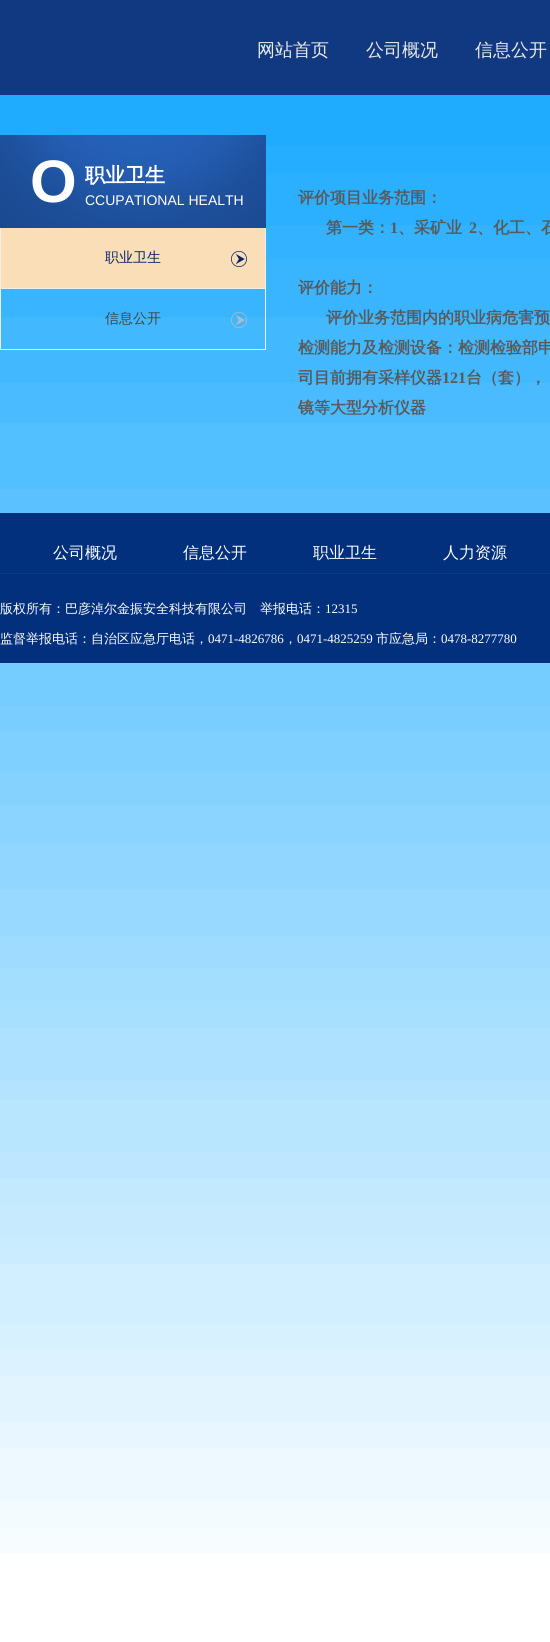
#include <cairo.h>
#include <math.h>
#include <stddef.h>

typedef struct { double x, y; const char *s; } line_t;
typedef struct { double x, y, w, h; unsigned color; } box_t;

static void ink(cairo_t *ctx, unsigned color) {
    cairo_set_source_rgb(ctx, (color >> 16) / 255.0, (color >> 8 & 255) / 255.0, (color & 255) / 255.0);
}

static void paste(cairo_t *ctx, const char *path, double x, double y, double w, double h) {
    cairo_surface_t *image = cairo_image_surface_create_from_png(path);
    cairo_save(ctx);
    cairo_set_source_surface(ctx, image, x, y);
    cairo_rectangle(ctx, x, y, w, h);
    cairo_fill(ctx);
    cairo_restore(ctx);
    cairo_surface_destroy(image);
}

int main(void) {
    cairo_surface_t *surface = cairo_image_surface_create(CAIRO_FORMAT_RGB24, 550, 1642);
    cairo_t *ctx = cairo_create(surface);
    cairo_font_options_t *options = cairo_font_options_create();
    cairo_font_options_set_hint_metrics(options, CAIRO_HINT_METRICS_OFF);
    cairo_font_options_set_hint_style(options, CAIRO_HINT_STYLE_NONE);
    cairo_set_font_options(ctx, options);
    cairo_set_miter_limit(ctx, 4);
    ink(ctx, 0xFFFFFF);
    cairo_paint(ctx);
    paste(ctx, "media/1.png", 0, 95, 550, 1458);
    ink(ctx, 0x113981);
    cairo_rectangle(ctx, 0, 0, 550, 95);
    cairo_fill(ctx);
    cairo_select_font_face(ctx, "WenQuanYi Zen Hei Medium", CAIRO_FONT_SLANT_NORMAL, CAIRO_FONT_WEIGHT_NORMAL);
    cairo_set_font_size(ctx, 18);
    ink(ctx, 0xEBEBEA);
    {
        static const line_t items[] = {
            {257, 56, "网站首页"},
            {366, 56, "公司概况"},
            {475, 56, "信息公开"},
        };
        for (size_t i = 0; i < sizeof items / sizeof *items; i++) {
            cairo_move_to(ctx, items[i].x, items[i].y);
            cairo_show_text(ctx, items[i].s);
        }
    }
    paste(ctx, "media/2.png", 0, 135, 266, 93);
    cairo_select_font_face(ctx, "Liberation Sans", CAIRO_FONT_SLANT_NORMAL, CAIRO_FONT_WEIGHT_BOLD);
    cairo_set_font_size(ctx, 60);
    ink(ctx, 0xFFFFFF);
    cairo_move_to(ctx, 30, 202);
    cairo_show_text(ctx, "O");
    cairo_select_font_face(ctx, "WenQuanYi Zen Hei", CAIRO_FONT_SLANT_NORMAL, CAIRO_FONT_WEIGHT_BOLD);
    cairo_set_font_size(ctx, 20);
    cairo_move_to(ctx, 85, 182);
    cairo_show_text(ctx, "职业卫生");
    cairo_select_font_face(ctx, "Liberation Sans", CAIRO_FONT_SLANT_NORMAL, CAIRO_FONT_WEIGHT_NORMAL);
    cairo_set_font_size(ctx, 14);
    cairo_move_to(ctx, 85, 205);
    cairo_show_text(ctx, "CCUPATIONAL HEALTH");
    {
        static const box_t items[] = {
            {265, 228, 1, 122, 0xEEEEEE},
            {0, 228, 1, 122, 0xEEEEEE},
            {1, 228, 264, 60, 0xFADEB7},
        };
        for (size_t i = 0; i < sizeof items / sizeof *items; i++) {
            ink(ctx, items[i].color);
            cairo_rectangle(ctx, items[i].x, items[i].y, items[i].w, items[i].h);
            cairo_fill(ctx);
        }
    }
    paste(ctx, "media/3.png", 231, 251, 16, 16);
    ink(ctx, 0xEEEEEE);
    cairo_rectangle(ctx, 1, 288, 264, 1);
    cairo_fill(ctx);
    cairo_select_font_face(ctx, "WenQuanYi Zen Hei Medium", CAIRO_FONT_SLANT_NORMAL, CAIRO_FONT_WEIGHT_NORMAL);
    ink(ctx, 0x07246A);
    cairo_move_to(ctx, 105, 262);
    cairo_show_text(ctx, "职业卫生");
    paste(ctx, "media/4.png", 231, 312, 16, 16);
    ink(ctx, 0xEEEEEE);
    cairo_rectangle(ctx, 1, 349, 264, 1);
    cairo_fill(ctx);
    ink(ctx, 0x434343);
    cairo_move_to(ctx, 105, 323);
    cairo_show_text(ctx, "信息公开");
    cairo_select_font_face(ctx, "WenQuanYi Zen Hei", CAIRO_FONT_SLANT_NORMAL, CAIRO_FONT_WEIGHT_BOLD);
    cairo_set_font_size(ctx, 16);
    ink(ctx, 0x5A5A5A);
    cairo_move_to(ctx, 298, 203);
    cairo_show_text(ctx, "评价项目业务范围：");
    cairo_move_to(ctx, 326, 233);
    cairo_show_text(ctx, "第一类：");
    cairo_select_font_face(ctx, "Liberation Serif", CAIRO_FONT_SLANT_NORMAL, CAIRO_FONT_WEIGHT_BOLD);
    cairo_move_to(ctx, 390, 233);
    cairo_show_text(ctx, "1");
    cairo_select_font_face(ctx, "WenQuanYi Zen Hei", CAIRO_FONT_SLANT_NORMAL, CAIRO_FONT_WEIGHT_BOLD);
    cairo_move_to(ctx, 398, 233);
    cairo_show_text(ctx, "、采矿业");
    cairo_select_font_face(ctx, "Liberation Serif", CAIRO_FONT_SLANT_NORMAL, CAIRO_FONT_WEIGHT_BOLD);
    cairo_move_to(ctx, 469, 233);
    cairo_show_text(ctx, "2");
    cairo_select_font_face(ctx, "WenQuanYi Zen Hei", CAIRO_FONT_SLANT_NORMAL, CAIRO_FONT_WEIGHT_BOLD);
    {
        static const line_t items[] = {
            {477, 233, "、化工、石"},
            {298, 293, "评价能力："},
            {326, 323, "评价业务范围内的职业病危害预"},
            {298, 353, "检测能力及检测设备：检测检验部申"},
            {298, 383, "司目前拥有采样仪器"},
        };
        for (size_t i = 0; i < sizeof items / sizeof *items; i++) {
            cairo_move_to(ctx, items[i].x, items[i].y);
            cairo_show_text(ctx, items[i].s);
        }
    }
    cairo_select_font_face(ctx, "Liberation Serif", CAIRO_FONT_SLANT_NORMAL, CAIRO_FONT_WEIGHT_BOLD);
    cairo_move_to(ctx, 442, 383);
    cairo_show_text(ctx, "121");
    cairo_select_font_face(ctx, "WenQuanYi Zen Hei", CAIRO_FONT_SLANT_NORMAL, CAIRO_FONT_WEIGHT_BOLD);
    cairo_move_to(ctx, 466, 383);
    cairo_show_text(ctx, "台（套），");
    cairo_move_to(ctx, 298, 413);
    cairo_show_text(ctx, "镜等大型分析仪器");
    ink(ctx, 0x02307C);
    cairo_rectangle(ctx, 0, 513, 550, 150);
    cairo_fill(ctx);
    ink(ctx, 0x063B95);
    cairo_rectangle(ctx, 0, 573, 550, 1);
    cairo_fill(ctx);
    cairo_select_font_face(ctx, "WenQuanYi Zen Hei Medium", CAIRO_FONT_SLANT_NORMAL, CAIRO_FONT_WEIGHT_NORMAL);
    ink(ctx, 0xFFFFFF);
    {
        static const line_t items[] = {
            {53, 558, "公司概况"},
            {183, 558, "信息公开"},
            {313, 558, "职业卫生"},
            {443, 558, "人力资源"},
        };
        for (size_t i = 0; i < sizeof items / sizeof *items; i++) {
            cairo_move_to(ctx, items[i].x, items[i].y);
            cairo_show_text(ctx, items[i].s);
        }
    }
    cairo_set_font_size(ctx, 13);
    cairo_move_to(ctx, 0, 613);
    cairo_show_text(ctx, "版权所有：巴彦淖尔金振安全科技有限公司");
    cairo_move_to(ctx, 260, 613);
    cairo_show_text(ctx, "举报电话：");
    cairo_select_font_face(ctx, "Liberation Serif", CAIRO_FONT_SLANT_NORMAL, CAIRO_FONT_WEIGHT_NORMAL);
    cairo_move_to(ctx, 325, 613);
    cairo_show_text(ctx, "12315");
    cairo_select_font_face(ctx, "WenQuanYi Zen Hei Medium", CAIRO_FONT_SLANT_NORMAL, CAIRO_FONT_WEIGHT_NORMAL);
    cairo_move_to(ctx, 0, 643);
    cairo_show_text(ctx, "监督举报电话：自治区应急厅电话，");
    cairo_select_font_face(ctx, "Liberation Serif", CAIRO_FONT_SLANT_NORMAL, CAIRO_FONT_WEIGHT_NORMAL);
    cairo_move_to(ctx, 208, 643);
    cairo_show_text(ctx, "0471-4826786");
    cairo_select_font_face(ctx, "WenQuanYi Zen Hei Medium", CAIRO_FONT_SLANT_NORMAL, CAIRO_FONT_WEIGHT_NORMAL);
    cairo_move_to(ctx, 284, 643);
    cairo_show_text(ctx, "，");
    cairo_select_font_face(ctx, "Liberation Serif", CAIRO_FONT_SLANT_NORMAL, CAIRO_FONT_WEIGHT_NORMAL);
    cairo_move_to(ctx, 297, 643);
    cairo_show_text(ctx, "0471-4825259");
    cairo_select_font_face(ctx, "WenQuanYi Zen Hei Medium", CAIRO_FONT_SLANT_NORMAL, CAIRO_FONT_WEIGHT_NORMAL);
    cairo_move_to(ctx, 376, 643);
    cairo_show_text(ctx, "市应急局：");
    cairo_select_font_face(ctx, "Liberation Serif", CAIRO_FONT_SLANT_NORMAL, CAIRO_FONT_WEIGHT_NORMAL);
    cairo_move_to(ctx, 441, 643);
    cairo_show_text(ctx, "0478-8277780");
    cairo_surface_write_to_png(surface, "image.png");
    cairo_font_options_destroy(options);
    cairo_destroy(ctx);
    cairo_surface_destroy(surface);
    return 0;
}
